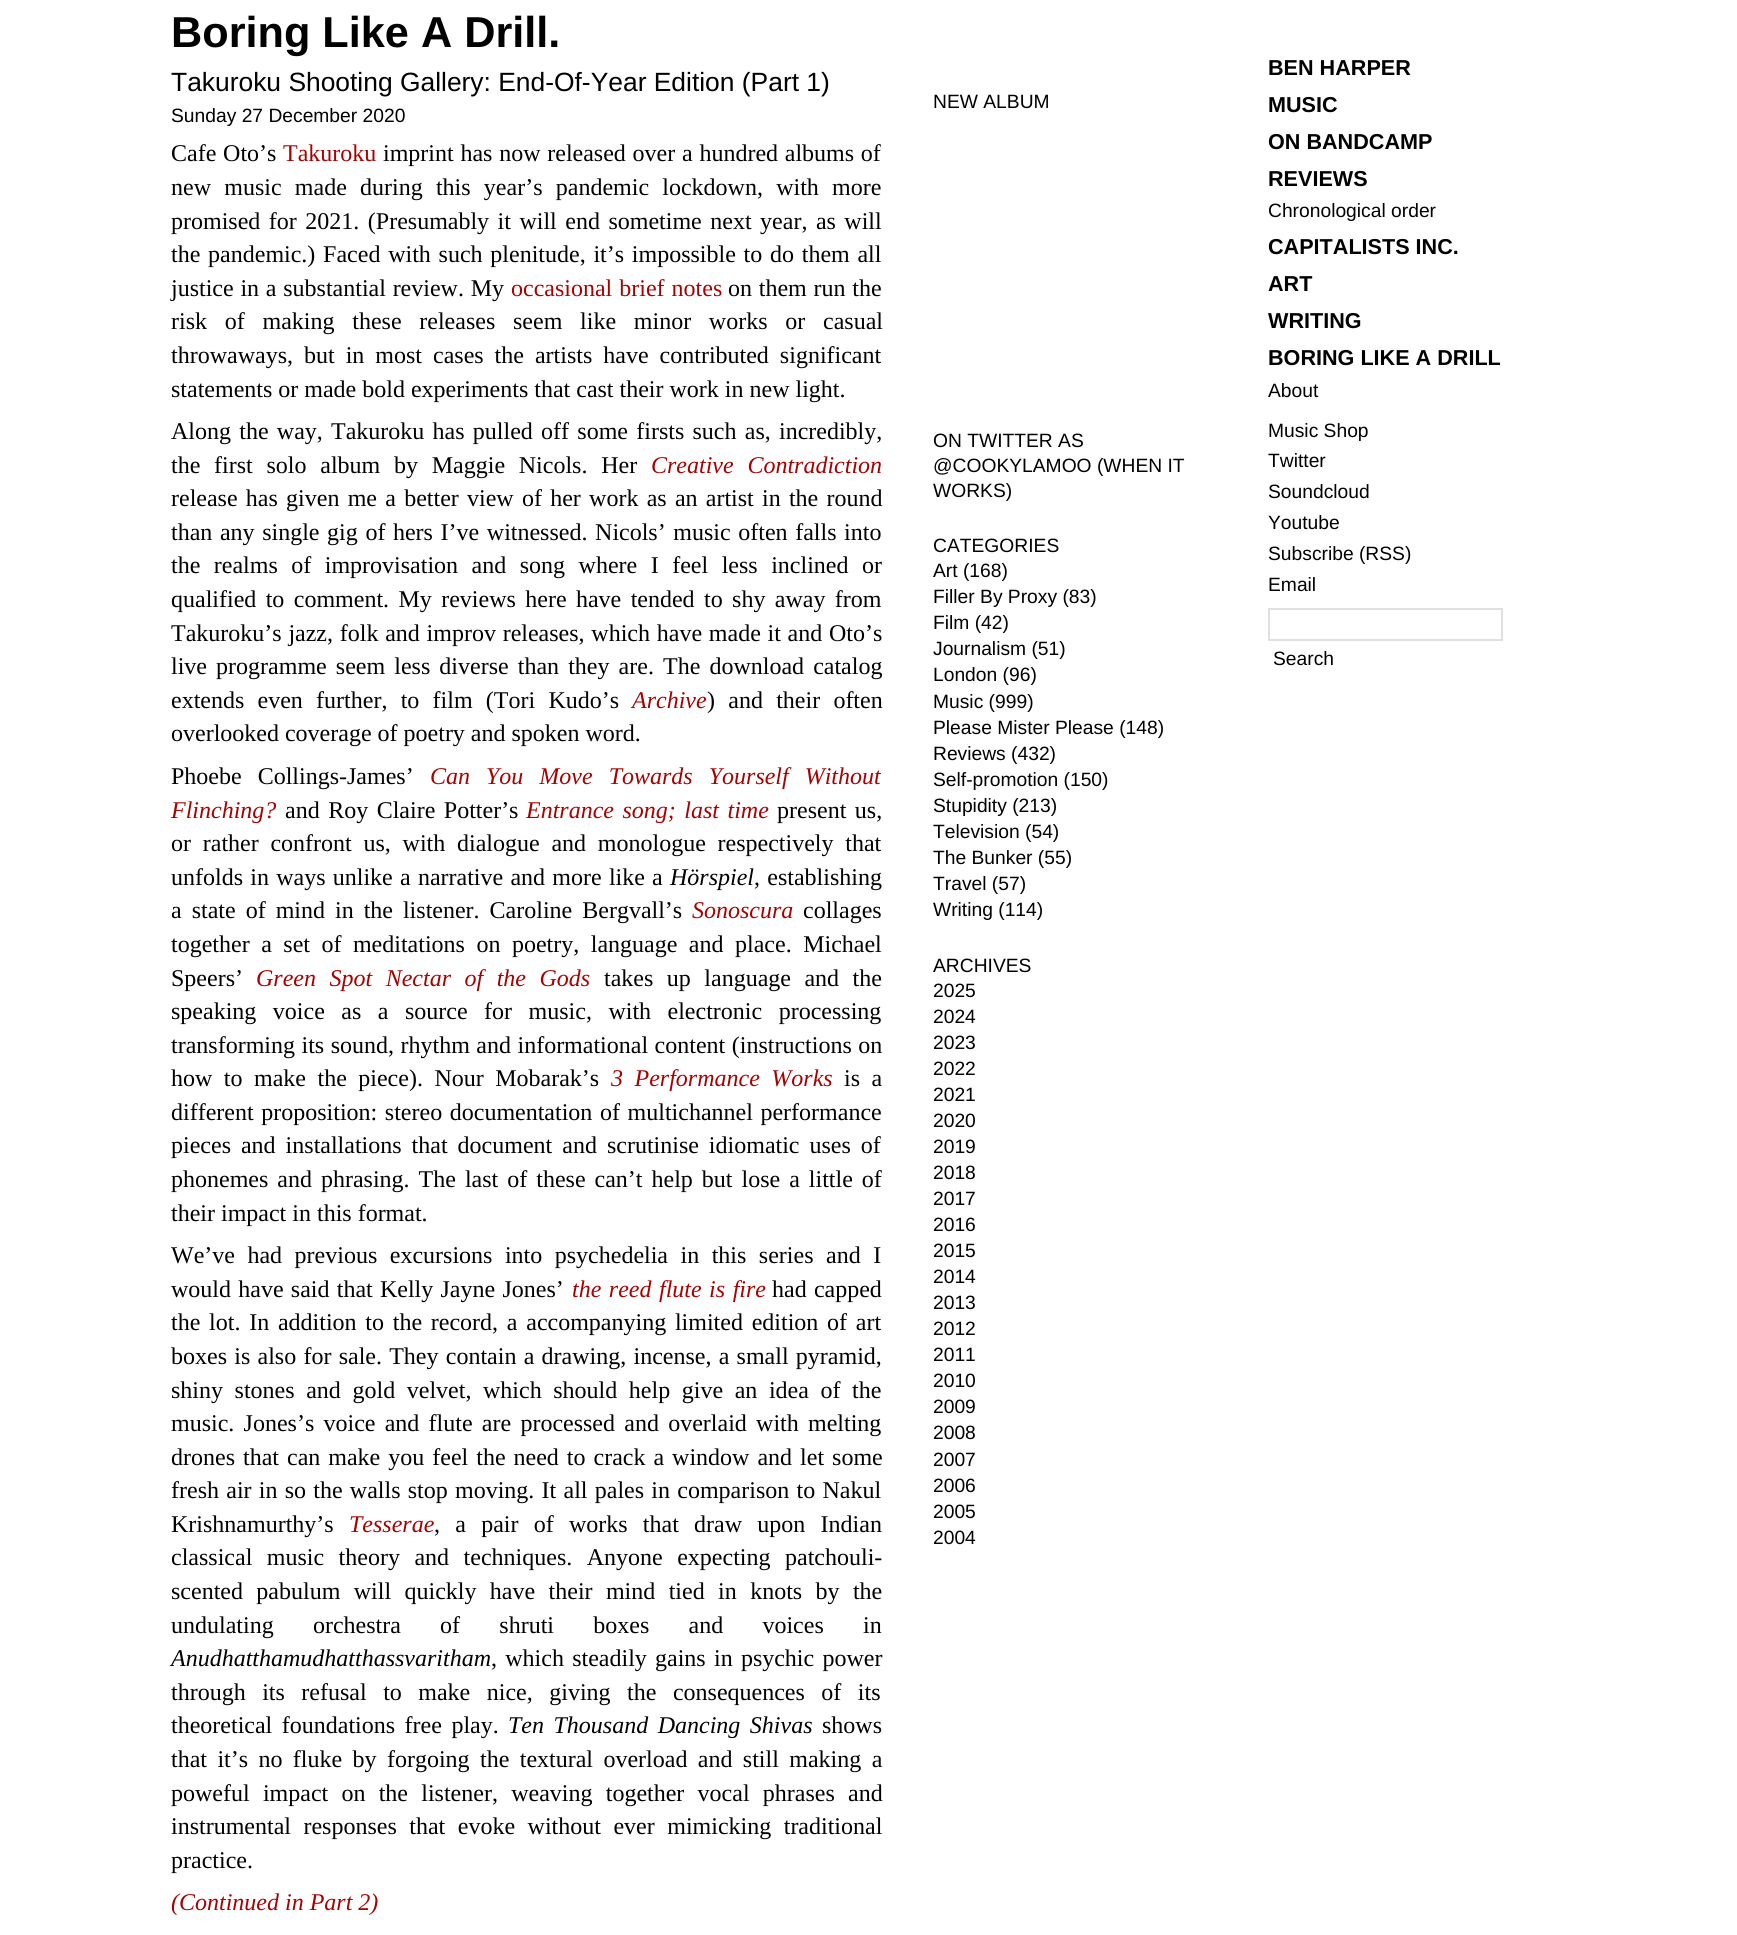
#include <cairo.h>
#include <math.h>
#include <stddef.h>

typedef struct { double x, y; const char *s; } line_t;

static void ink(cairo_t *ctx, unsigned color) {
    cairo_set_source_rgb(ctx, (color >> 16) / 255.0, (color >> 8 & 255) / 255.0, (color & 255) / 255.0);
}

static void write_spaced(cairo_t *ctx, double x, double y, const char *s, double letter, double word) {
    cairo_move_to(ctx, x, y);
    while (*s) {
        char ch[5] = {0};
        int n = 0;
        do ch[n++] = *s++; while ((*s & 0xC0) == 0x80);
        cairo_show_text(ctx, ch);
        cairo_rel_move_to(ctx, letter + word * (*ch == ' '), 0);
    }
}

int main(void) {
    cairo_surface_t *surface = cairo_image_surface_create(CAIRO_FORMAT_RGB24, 1737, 1935);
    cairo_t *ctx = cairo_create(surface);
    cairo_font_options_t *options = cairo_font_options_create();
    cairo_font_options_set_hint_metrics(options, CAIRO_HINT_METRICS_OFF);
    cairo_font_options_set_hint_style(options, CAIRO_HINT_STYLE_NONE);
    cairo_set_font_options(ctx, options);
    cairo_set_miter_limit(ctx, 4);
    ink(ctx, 0xFFFFFF);
    cairo_paint(ctx);
    cairo_select_font_face(ctx, "Liberation Sans", CAIRO_FONT_SLANT_NORMAL, CAIRO_FONT_WEIGHT_BOLD);
    cairo_set_font_size(ctx, 43.25);
    ink(ctx, 0x000000);
    cairo_move_to(ctx, 171, 47);
    cairo_show_text(ctx, "Boring Like A Drill.");
    cairo_select_font_face(ctx, "Liberation Sans", CAIRO_FONT_SLANT_NORMAL, CAIRO_FONT_WEIGHT_NORMAL);
    cairo_set_font_size(ctx, 26.4);
    cairo_move_to(ctx, 171, 91);
    cairo_show_text(ctx, "Takuroku Shooting Gallery: End-Of-Year Edition (Part 1)");
    cairo_set_font_size(ctx, 19.25);
    cairo_move_to(ctx, 171, 122);
    cairo_show_text(ctx, "Sunday 27 December 2020");
    cairo_select_font_face(ctx, "Liberation Serif", CAIRO_FONT_SLANT_NORMAL, CAIRO_FONT_WEIGHT_NORMAL);
    cairo_set_font_size(ctx, 24);
    write_spaced(ctx, 171, 161, "Cafe Oto’s", 0, 0.75);
    ink(ctx, 0xAA0000);
    cairo_move_to(ctx, 283, 161);
    cairo_show_text(ctx, "Takuroku");
    ink(ctx, 0x000000);
    write_spaced(ctx, 383, 161, "imprint has now released over a hundred albums of", 0, 0.75);
    write_spaced(ctx, 171, 195, "new music made during this year’s pandemic lockdown, with more", 0, 7.25);
    write_spaced(ctx, 171, 229, "promised for 2021. (Presumably it will end sometime next year, as will", 0, 2.5);
    write_spaced(ctx, 171, 262, "the pandemic.) Faced with such plenitude, it’s impossible to do them all", 0, 1.75);
    write_spaced(ctx, 171, 296, "justice in a substantial review. My", 0, 0.75);
    ink(ctx, 0xAA0000);
    write_spaced(ctx, 511, 296, "occasional brief notes", 0, 1);
    ink(ctx, 0x000000);
    write_spaced(ctx, 728, 296, "on them run the", 0, 0.75);
    write_spaced(ctx, 171, 329, "risk of making these releases seem like minor works or casual", 0, 11.75);
    write_spaced(ctx, 171, 363, "throwaways, but in most cases the artists have contributed significant", 0, 5);
    cairo_move_to(ctx, 171, 397);
    cairo_show_text(ctx, "statements or made bold experiments that cast their work in new light.");
    write_spaced(ctx, 171, 439, "Along the way, Takuroku has pulled off some firsts such as, incredibly,", 0, 2.25);
    write_spaced(ctx, 171, 473, "the first solo album by Maggie Nicols. Her", 0, 7.75);
    cairo_select_font_face(ctx, "Liberation Serif", CAIRO_FONT_SLANT_ITALIC, CAIRO_FONT_WEIGHT_NORMAL);
    ink(ctx, 0xAA0000);
    write_spaced(ctx, 651, 473, "Creative Contradiction", 0, 7.75);
    cairo_select_font_face(ctx, "Liberation Serif", CAIRO_FONT_SLANT_NORMAL, CAIRO_FONT_WEIGHT_NORMAL);
    ink(ctx, 0x000000);
    write_spaced(ctx, 171, 506, "release has given me a better view of her work as an artist in the round", 0, 2.25);
    write_spaced(ctx, 171, 540, "than any single gig of hers I’ve witnessed. Nicols’ music often falls into", 0, 1.6);
    write_spaced(ctx, 171, 573, "the realms of improvisation and song where I feel less inclined or", 0, 7.5);
    write_spaced(ctx, 171, 607, "qualified to comment. My reviews here have tended to shy away from", 0, 3.4);
    write_spaced(ctx, 171, 641, "Takuroku’s jazz, folk and improv releases, which have made it and Oto’s", 0, 0.75);
    write_spaced(ctx, 171, 674, "live programme seem less diverse than they are. The download catalog", 0, 3.1);
    write_spaced(ctx, 171, 708, "extends even further, to film (Tori Kudo’s", 0, 7.25);
    cairo_select_font_face(ctx, "Liberation Serif", CAIRO_FONT_SLANT_ITALIC, CAIRO_FONT_WEIGHT_NORMAL);
    ink(ctx, 0xAA0000);
    cairo_move_to(ctx, 632, 708);
    cairo_show_text(ctx, "Archive");
    cairo_select_font_face(ctx, "Liberation Serif", CAIRO_FONT_SLANT_NORMAL, CAIRO_FONT_WEIGHT_NORMAL);
    ink(ctx, 0x000000);
    write_spaced(ctx, 707, 708, ") and their often", 0, 7.25);
    cairo_move_to(ctx, 171, 741);
    cairo_show_text(ctx, "overlooked coverage of poetry and spoken word.");
    write_spaced(ctx, 171, 784, "Phoebe Collings-James’", 0, 10);
    cairo_select_font_face(ctx, "Liberation Serif", CAIRO_FONT_SLANT_ITALIC, CAIRO_FONT_WEIGHT_NORMAL);
    ink(ctx, 0xAA0000);
    write_spaced(ctx, 430, 784, "Can You Move Towards Yourself Without", 0, 10);
    cairo_move_to(ctx, 171, 818);
    cairo_show_text(ctx, "Flinching?");
    cairo_select_font_face(ctx, "Liberation Serif", CAIRO_FONT_SLANT_NORMAL, CAIRO_FONT_WEIGHT_NORMAL);
    ink(ctx, 0x000000);
    write_spaced(ctx, 285, 818, "and Roy Claire Potter’s", 0, 2.5);
    cairo_select_font_face(ctx, "Liberation Serif", CAIRO_FONT_SLANT_ITALIC, CAIRO_FONT_WEIGHT_NORMAL);
    ink(ctx, 0xAA0000);
    write_spaced(ctx, 526, 818, "Entrance song; last time", 0, 2.5);
    cairo_select_font_face(ctx, "Liberation Serif", CAIRO_FONT_SLANT_NORMAL, CAIRO_FONT_WEIGHT_NORMAL);
    ink(ctx, 0x000000);
    write_spaced(ctx, 777, 818, "present us,", 0, 2.5);
    write_spaced(ctx, 171, 851, "or rather confront us, with dialogue and monologue respectively that", 0, 5.75);
    write_spaced(ctx, 171, 885, "unfolds in ways unlike a narrative and more like a", 0, 1.25);
    cairo_select_font_face(ctx, "Liberation Serif", CAIRO_FONT_SLANT_ITALIC, CAIRO_FONT_WEIGHT_NORMAL);
    cairo_move_to(ctx, 670, 885);
    cairo_show_text(ctx, "Hörspiel");
    cairo_select_font_face(ctx, "Liberation Serif", CAIRO_FONT_SLANT_NORMAL, CAIRO_FONT_WEIGHT_NORMAL);
    write_spaced(ctx, 754, 885, ", establishing", 0, 1.25);
    write_spaced(ctx, 171, 918, "a state of mind in the listener. Caroline Bergvall’s", 0, 4);
    cairo_select_font_face(ctx, "Liberation Serif", CAIRO_FONT_SLANT_ITALIC, CAIRO_FONT_WEIGHT_NORMAL);
    ink(ctx, 0xAA0000);
    cairo_move_to(ctx, 692, 918);
    cairo_show_text(ctx, "Sonoscura");
    cairo_select_font_face(ctx, "Liberation Serif", CAIRO_FONT_SLANT_NORMAL, CAIRO_FONT_WEIGHT_NORMAL);
    ink(ctx, 0x000000);
    cairo_move_to(ctx, 803, 918);
    cairo_show_text(ctx, "collages");
    write_spaced(ctx, 171, 952, "together a set of meditations on poetry, language and place. Michael", 0, 5.5);
    cairo_move_to(ctx, 171, 986);
    cairo_show_text(ctx, "Speers’");
    cairo_select_font_face(ctx, "Liberation Serif", CAIRO_FONT_SLANT_ITALIC, CAIRO_FONT_WEIGHT_NORMAL);
    ink(ctx, 0xAA0000);
    write_spaced(ctx, 256, 986, "Green Spot Nectar of the Gods", 0, 7.5);
    cairo_select_font_face(ctx, "Liberation Serif", CAIRO_FONT_SLANT_NORMAL, CAIRO_FONT_WEIGHT_NORMAL);
    ink(ctx, 0x000000);
    write_spaced(ctx, 604, 986, "takes up language and the", 0, 7.5);
    write_spaced(ctx, 171, 1019, "speaking voice as a source for music, with electronic processing", 0, 10.5);
    write_spaced(ctx, 171, 1053, "transforming its sound, rhythm and informational content (instructions on", 0, 0.5);
    write_spaced(ctx, 171, 1086, "how to make the piece). Nour Mobarak’s", 0, 5.5);
    cairo_select_font_face(ctx, "Liberation Serif", CAIRO_FONT_SLANT_ITALIC, CAIRO_FONT_WEIGHT_NORMAL);
    ink(ctx, 0xAA0000);
    write_spaced(ctx, 611, 1086, "3 Performance Works", 0, 5.5);
    cairo_select_font_face(ctx, "Liberation Serif", CAIRO_FONT_SLANT_NORMAL, CAIRO_FONT_WEIGHT_NORMAL);
    ink(ctx, 0x000000);
    write_spaced(ctx, 844, 1086, "is a", 0, 5.5);
    write_spaced(ctx, 171, 1120, "different proposition: stereo documentation of multichannel performance", 0, 1.6);
    write_spaced(ctx, 171, 1153, "pieces and installations that document and scrutinise idiomatic uses of", 0, 4);
    write_spaced(ctx, 171, 1187, "phonemes and phrasing. The last of these can’t help but lose a little of", 0, 3);
    cairo_move_to(ctx, 171, 1221);
    cairo_show_text(ctx, "their impact in this format.");
    write_spaced(ctx, 171, 1263, "We’ve had previous excursions into psychedelia in this series and I", 0, 6.5);
    write_spaced(ctx, 171, 1297, "would have said that Kelly Jayne Jones’", 0, 1.25);
    cairo_select_font_face(ctx, "Liberation Serif", CAIRO_FONT_SLANT_ITALIC, CAIRO_FONT_WEIGHT_NORMAL);
    ink(ctx, 0xAA0000);
    write_spaced(ctx, 572, 1297, "the reed flute is fire", 0, 1.5);
    cairo_select_font_face(ctx, "Liberation Serif", CAIRO_FONT_SLANT_NORMAL, CAIRO_FONT_WEIGHT_NORMAL);
    ink(ctx, 0x000000);
    write_spaced(ctx, 772, 1297, "had capped", 0, 1.25);
    write_spaced(ctx, 171, 1330, "the lot. In addition to the record, a accompanying limited edition of art", 0, 2.75);
    write_spaced(ctx, 171, 1364, "boxes is also for sale. They contain a drawing, incense, a small pyramid,", 0, 1.25);
    write_spaced(ctx, 171, 1398, "shiny stones and gold velvet, which should help give an idea of the", 0, 5.6);
    write_spaced(ctx, 171, 1431, "music. Jones’s voice and flute are processed and overlaid with melting", 0, 3.25);
    write_spaced(ctx, 171, 1465, "drones that can make you feel the need to crack a window and let some", 0, 2);
    write_spaced(ctx, 171, 1498, "fresh air in so the walls stop moving. It all pales in comparison to Nakul", 0, 1.25);
    cairo_move_to(ctx, 171, 1532);
    cairo_show_text(ctx, "Krishnamurthy’s");
    cairo_select_font_face(ctx, "Liberation Serif", CAIRO_FONT_SLANT_ITALIC, CAIRO_FONT_WEIGHT_NORMAL);
    ink(ctx, 0xAA0000);
    cairo_move_to(ctx, 349, 1532);
    cairo_show_text(ctx, "Tesserae");
    cairo_select_font_face(ctx, "Liberation Serif", CAIRO_FONT_SLANT_NORMAL, CAIRO_FONT_WEIGHT_NORMAL);
    ink(ctx, 0x000000);
    write_spaced(ctx, 434, 1532, ", a pair of works that draw upon Indian", 0, 9.25);
    write_spaced(ctx, 171, 1565, "classical music theory and techniques. Anyone expecting patchouli-", 0, 8.5);
    write_spaced(ctx, 171, 1599, "scented pabulum will quickly have their mind tied in knots by the", 0, 7.4);
    write_spaced(ctx, 171, 1633, "undulating orchestra of shruti boxes and voices in", 0, 33.25);
    cairo_select_font_face(ctx, "Liberation Serif", CAIRO_FONT_SLANT_ITALIC, CAIRO_FONT_WEIGHT_NORMAL);
    cairo_move_to(ctx, 171, 1666);
    cairo_show_text(ctx, "Anudhatthamudhatthassvaritham");
    cairo_select_font_face(ctx, "Liberation Serif", CAIRO_FONT_SLANT_NORMAL, CAIRO_FONT_WEIGHT_NORMAL);
    write_spaced(ctx, 491, 1666, ", which steadily gains in psychic power", 0, 2.25);
    write_spaced(ctx, 171, 1700, "through its refusal to make nice, giving the consequences of its", 0, 10.5);
    write_spaced(ctx, 171, 1733, "theoretical foundations free play.", 0, 3.5);
    cairo_select_font_face(ctx, "Liberation Serif", CAIRO_FONT_SLANT_ITALIC, CAIRO_FONT_WEIGHT_NORMAL);
    write_spaced(ctx, 508, 1733, "Ten Thousand Dancing Shivas", 0, 3.5);
    cairo_select_font_face(ctx, "Liberation Serif", CAIRO_FONT_SLANT_NORMAL, CAIRO_FONT_WEIGHT_NORMAL);
    cairo_move_to(ctx, 822, 1733);
    cairo_show_text(ctx, "shows");
    write_spaced(ctx, 171, 1767, "that it’s no fluke by forgoing the textural overload and still making a", 0, 4.4);
    write_spaced(ctx, 171, 1801, "poweful impact on the listener, weaving together vocal phrases and", 0, 7.25);
    write_spaced(ctx, 171, 1834, "instrumental responses that evoke without ever mimicking traditional", 0, 6.5);
    cairo_move_to(ctx, 171, 1868);
    cairo_show_text(ctx, "practice.");
    cairo_select_font_face(ctx, "Liberation Serif", CAIRO_FONT_SLANT_ITALIC, CAIRO_FONT_WEIGHT_NORMAL);
    ink(ctx, 0xAA0000);
    cairo_move_to(ctx, 171, 1910);
    cairo_show_text(ctx, "(Continued in Part 2)");
    cairo_select_font_face(ctx, "Liberation Sans", CAIRO_FONT_SLANT_NORMAL, CAIRO_FONT_WEIGHT_NORMAL);
    cairo_set_font_size(ctx, 19.25);
    ink(ctx, 0x000000);
    {
        static const line_t items[] = {
            {933, 108, "NEW ALBUM"},
            {933, 447, "ON TWITTER AS"},
            {933, 472, "@COOKYLAMOO (WHEN IT"},
            {933, 497, "WORKS)"},
            {933, 552, "CATEGORIES"},
            {933, 577, "Art (168)"},
            {933, 603, "Filler By Proxy (83)"},
            {933, 629, "Film (42)"},
            {933, 655, "Journalism (51)"},
            {933, 681, "London (96)"},
            {933, 708, "Music (999)"},
            {933, 734, "Please Mister Please (148)"},
            {933, 760, "Reviews (432)"},
            {933, 786, "Self-promotion (150)"},
            {933, 812, "Stupidity (213)"},
            {933, 838, "Television (54)"},
            {933, 864, "The Bunker (55)"},
            {933, 890, "Travel (57)"},
            {933, 916, "Writing (114)"},
            {933, 972, "ARCHIVES"},
            {933, 997, "2025"},
            {933, 1023, "2024"},
            {933, 1049, "2023"},
            {933, 1075, "2022"},
            {933, 1101, "2021"},
            {933, 1127, "2020"},
            {933, 1153, "2019"},
            {933, 1179, "2018"},
            {933, 1205, "2017"},
            {933, 1231, "2016"},
            {933, 1257, "2015"},
            {933, 1283, "2014"},
            {933, 1309, "2013"},
            {933, 1335, "2012"},
            {933, 1361, "2011"},
            {933, 1387, "2010"},
            {933, 1413, "2009"},
            {933, 1439, "2008"},
            {933, 1466, "2007"},
            {933, 1492, "2006"},
            {933, 1518, "2005"},
            {933, 1544, "2004"},
        };
        for (size_t i = 0; i < sizeof items / sizeof *items; i++) {
            cairo_move_to(ctx, items[i].x, items[i].y);
            cairo_show_text(ctx, items[i].s);
        }
    }
    cairo_select_font_face(ctx, "Liberation Sans", CAIRO_FONT_SLANT_NORMAL, CAIRO_FONT_WEIGHT_BOLD);
    cairo_set_font_size(ctx, 21.6);
    {
        static const line_t items[] = {
            {1268, 75, "BEN HARPER"},
            {1268, 112, "MUSIC"},
            {1268, 149, "ON BANDCAMP"},
            {1268, 186, "REVIEWS"},
        };
        for (size_t i = 0; i < sizeof items / sizeof *items; i++) {
            cairo_move_to(ctx, items[i].x, items[i].y);
            cairo_show_text(ctx, items[i].s);
        }
    }
    cairo_select_font_face(ctx, "Liberation Sans", CAIRO_FONT_SLANT_NORMAL, CAIRO_FONT_WEIGHT_NORMAL);
    cairo_set_font_size(ctx, 19.25);
    cairo_move_to(ctx, 1268, 217);
    cairo_show_text(ctx, "Chronological order");
    cairo_select_font_face(ctx, "Liberation Sans", CAIRO_FONT_SLANT_NORMAL, CAIRO_FONT_WEIGHT_BOLD);
    cairo_set_font_size(ctx, 21.6);
    {
        static const line_t items[] = {
            {1268, 254, "CAPITALISTS INC."},
            {1268, 291, "ART"},
            {1268, 328, "WRITING"},
            {1268, 365, "BORING LIKE A DRILL"},
        };
        for (size_t i = 0; i < sizeof items / sizeof *items; i++) {
            cairo_move_to(ctx, items[i].x, items[i].y);
            cairo_show_text(ctx, items[i].s);
        }
    }
    cairo_select_font_face(ctx, "Liberation Sans", CAIRO_FONT_SLANT_NORMAL, CAIRO_FONT_WEIGHT_NORMAL);
    cairo_set_font_size(ctx, 19.25);
    {
        static const line_t items[] = {
            {1268, 397, "About"},
            {1268, 437, "Music Shop"},
            {1268, 467, "Twitter"},
            {1268, 498, "Soundcloud"},
            {1268, 529, "Youtube"},
            {1268, 560, "Subscribe (RSS)"},
            {1268, 591, "Email"},
        };
        for (size_t i = 0; i < sizeof items / sizeof *items; i++) {
            cairo_move_to(ctx, items[i].x, items[i].y);
            cairo_show_text(ctx, items[i].s);
        }
    }
    cairo_rectangle(ctx, 1269, 609, 233, 31);
    ink(ctx, 0xE0E0E0);
    cairo_stroke(ctx);
    ink(ctx, 0x000000);
    cairo_move_to(ctx, 1273, 665);
    cairo_show_text(ctx, "Search");
    cairo_surface_write_to_png(surface, "image.png");
    cairo_font_options_destroy(options);
    cairo_destroy(ctx);
    cairo_surface_destroy(surface);
    return 0;
}
